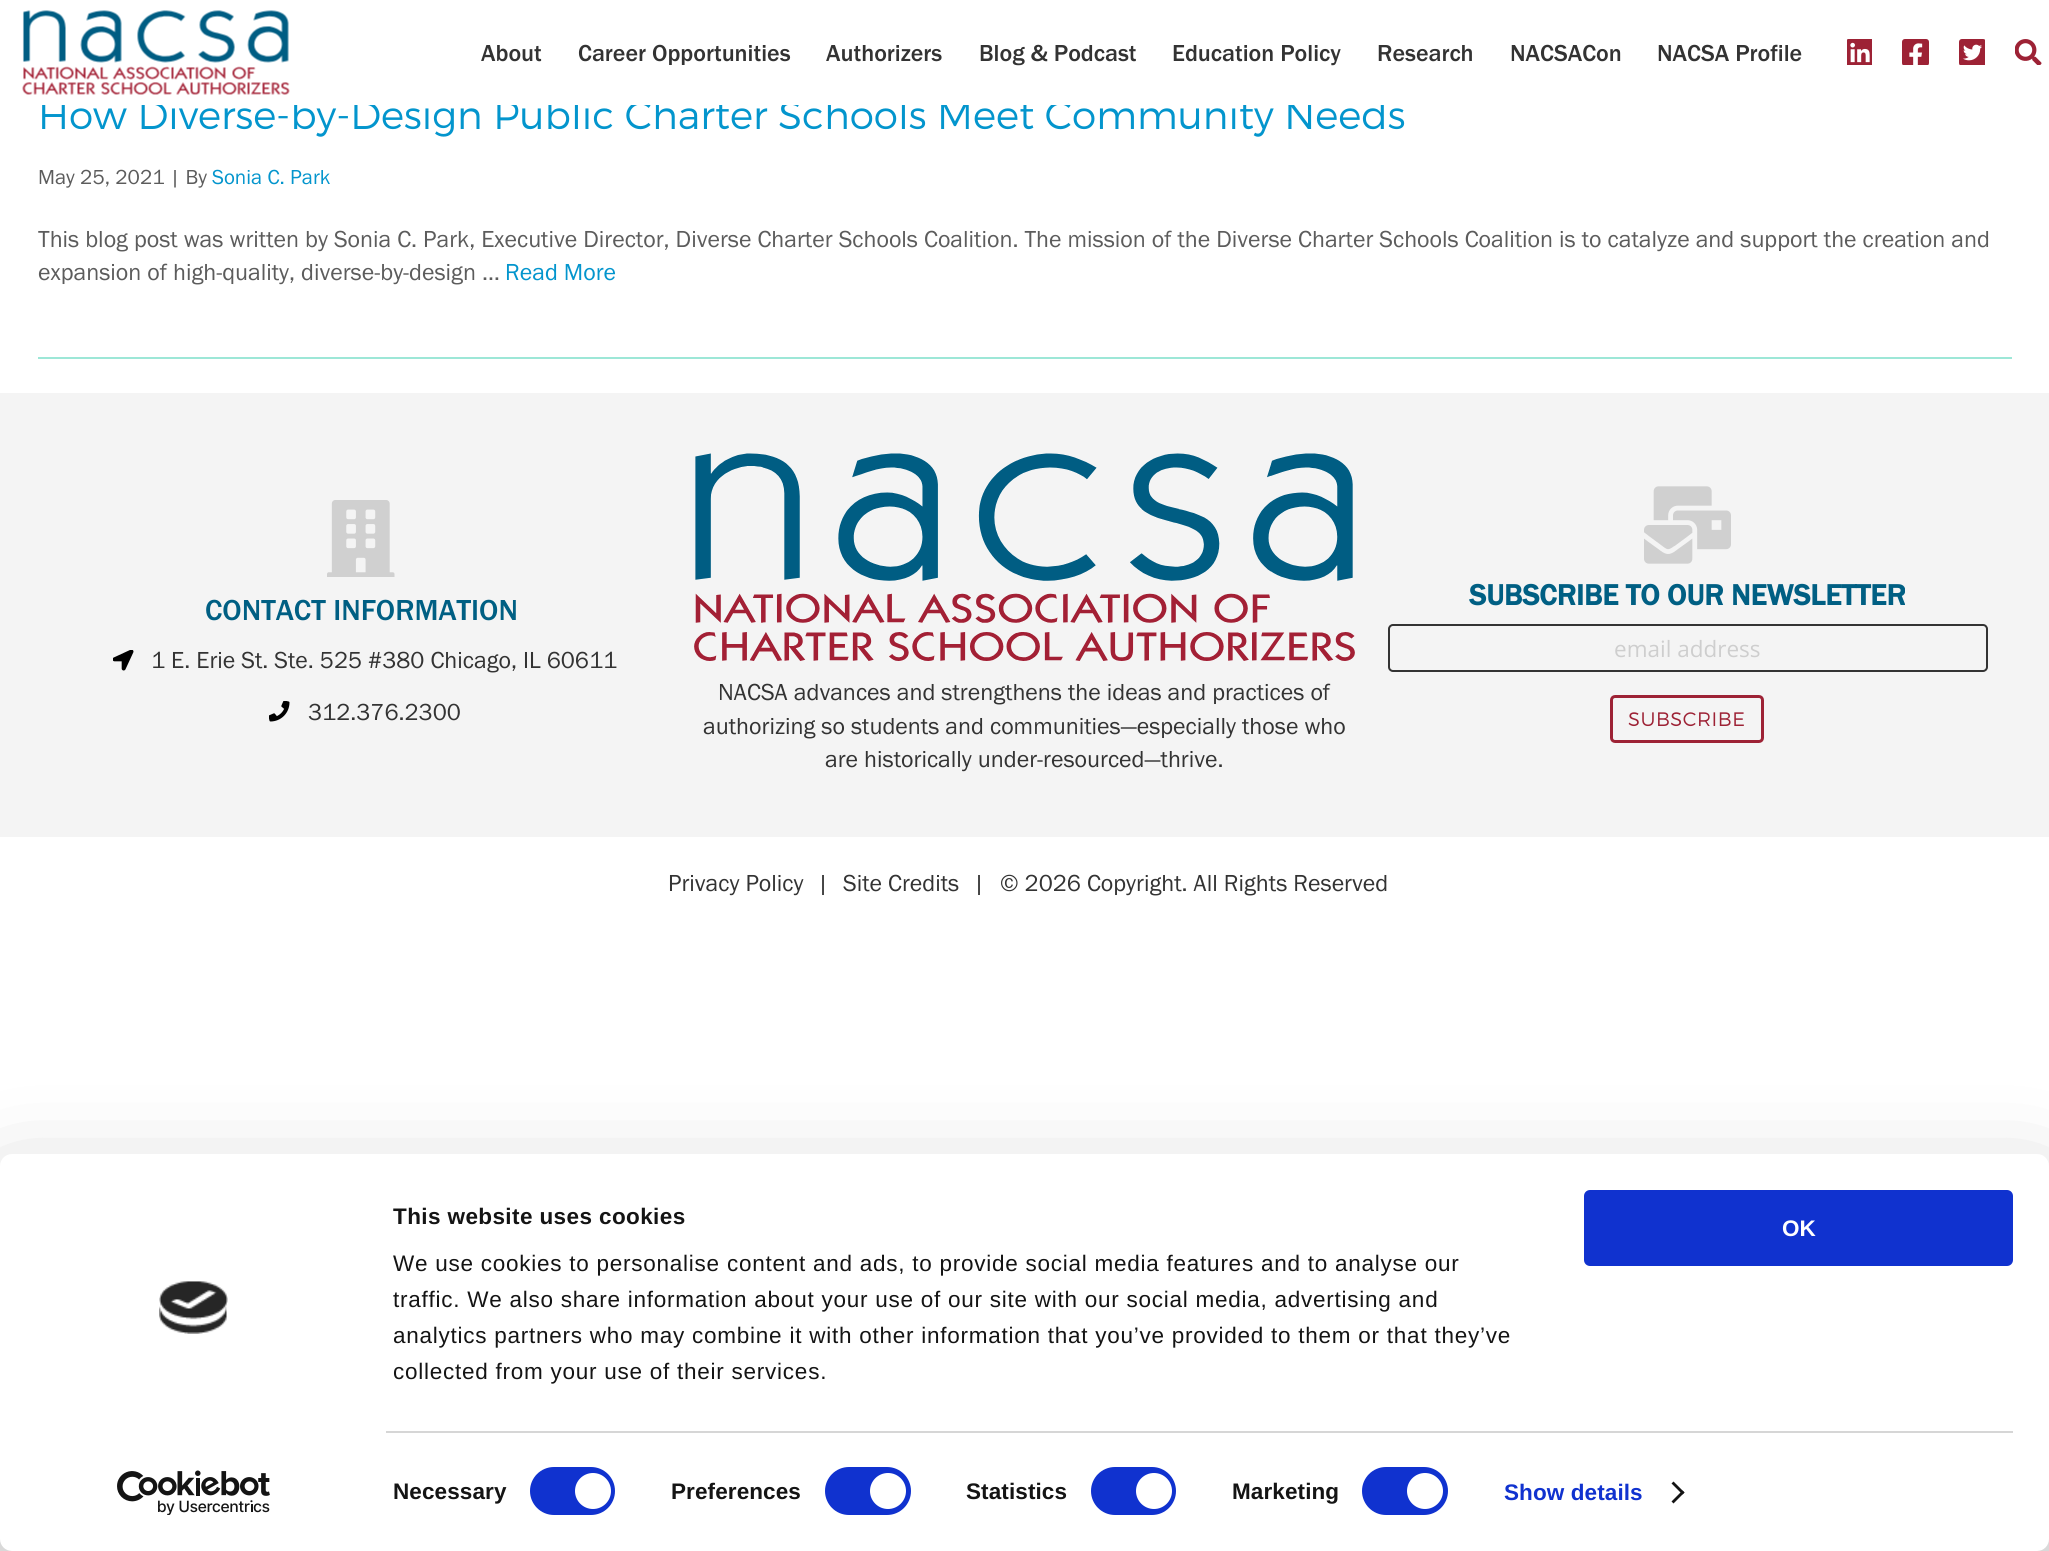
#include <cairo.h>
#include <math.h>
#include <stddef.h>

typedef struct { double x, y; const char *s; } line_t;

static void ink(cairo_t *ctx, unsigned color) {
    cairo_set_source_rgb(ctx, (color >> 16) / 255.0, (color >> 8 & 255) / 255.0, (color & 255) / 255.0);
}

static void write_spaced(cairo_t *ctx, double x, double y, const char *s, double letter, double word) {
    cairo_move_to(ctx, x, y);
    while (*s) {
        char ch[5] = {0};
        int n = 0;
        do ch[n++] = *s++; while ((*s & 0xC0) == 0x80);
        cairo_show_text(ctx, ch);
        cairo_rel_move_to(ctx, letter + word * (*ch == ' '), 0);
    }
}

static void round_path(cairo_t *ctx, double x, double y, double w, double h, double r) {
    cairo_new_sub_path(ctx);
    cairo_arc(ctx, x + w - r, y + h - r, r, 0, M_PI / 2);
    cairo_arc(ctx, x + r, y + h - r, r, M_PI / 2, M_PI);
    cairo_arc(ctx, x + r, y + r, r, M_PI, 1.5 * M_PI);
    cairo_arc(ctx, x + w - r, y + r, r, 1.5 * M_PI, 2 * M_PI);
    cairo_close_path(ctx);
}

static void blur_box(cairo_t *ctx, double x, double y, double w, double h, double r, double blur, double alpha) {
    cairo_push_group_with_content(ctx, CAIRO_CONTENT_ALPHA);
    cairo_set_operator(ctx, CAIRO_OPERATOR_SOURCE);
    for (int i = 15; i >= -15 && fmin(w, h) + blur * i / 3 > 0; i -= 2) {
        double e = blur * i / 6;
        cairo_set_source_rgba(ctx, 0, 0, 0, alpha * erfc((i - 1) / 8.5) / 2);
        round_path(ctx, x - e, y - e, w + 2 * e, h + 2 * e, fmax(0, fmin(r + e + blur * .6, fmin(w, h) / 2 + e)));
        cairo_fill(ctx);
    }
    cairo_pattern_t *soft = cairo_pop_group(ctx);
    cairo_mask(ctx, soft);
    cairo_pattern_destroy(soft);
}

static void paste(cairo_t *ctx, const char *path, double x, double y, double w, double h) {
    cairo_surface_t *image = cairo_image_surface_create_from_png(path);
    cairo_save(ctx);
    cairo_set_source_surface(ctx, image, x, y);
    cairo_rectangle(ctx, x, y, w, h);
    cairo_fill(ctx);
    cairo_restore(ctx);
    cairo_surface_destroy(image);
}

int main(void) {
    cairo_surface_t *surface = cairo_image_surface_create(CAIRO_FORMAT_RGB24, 2049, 1551);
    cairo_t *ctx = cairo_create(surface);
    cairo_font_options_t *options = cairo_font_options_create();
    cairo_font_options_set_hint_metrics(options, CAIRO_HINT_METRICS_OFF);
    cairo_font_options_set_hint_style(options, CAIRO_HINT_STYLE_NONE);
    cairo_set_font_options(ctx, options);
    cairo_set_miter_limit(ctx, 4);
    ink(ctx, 0xFFFFFF);
    cairo_paint(ctx);
    cairo_select_font_face(ctx, "Montserrat Light", CAIRO_FONT_SLANT_NORMAL, CAIRO_FONT_WEIGHT_NORMAL);
    cairo_set_font_size(ctx, 39);
    ink(ctx, 0x0395CD);
    cairo_move_to(ctx, 38, 129);
    cairo_show_text(ctx, "How Diverse-by-Design Public Charter Schools Meet Community Needs");
    ink(ctx, 0xFFFFFF);
    cairo_rectangle(ctx, 41, 100, 1343, 5);
    cairo_fill(ctx);
    paste(ctx, "media/1.png", 22, 10, 268, 85);
    cairo_select_font_face(ctx, "Franklin Gothic Medium", CAIRO_FONT_SLANT_NORMAL, CAIRO_FONT_WEIGHT_NORMAL);
    cairo_set_font_size(ctx, 24);
    ink(ctx, 0x333333);
    {
        static const line_t items[] = {
            {481, 61, "About"},
            {578, 61, "Career Opportunities"},
            {826, 61, "Authorizers"},
            {979, 61, "Blog & Podcast"},
            {1172, 61, "Education Policy"},
            {1377, 61, "Research"},
            {1510, 61, "NACSACon"},
            {1657, 61, "NACSA Profile"},
        };
        for (size_t i = 0; i < sizeof items / sizeof *items; i++) {
            cairo_move_to(ctx, items[i].x, items[i].y);
            cairo_show_text(ctx, items[i].s);
        }
    }
    paste(ctx, "media/2.png", 1847, 39, 25, 26);
    paste(ctx, "media/3.png", 1902, 39, 27, 26);
    paste(ctx, "media/4.png", 1959, 39, 26, 26);
    paste(ctx, "media/5.png", 2015, 39, 27, 26);
    ink(ctx, 0x9DE7D7);
    cairo_rectangle(ctx, 38, 357, 1974, 2);
    cairo_fill(ctx);
    cairo_select_font_face(ctx, "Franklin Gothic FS", CAIRO_FONT_SLANT_NORMAL, CAIRO_FONT_WEIGHT_NORMAL);
    cairo_set_font_size(ctx, 21);
    ink(ctx, 0x5C5C5C);
    cairo_move_to(ctx, 38, 184);
    cairo_show_text(ctx, "May 25, 2021 | By");
    ink(ctx, 0x0395CD);
    cairo_move_to(ctx, 212, 184);
    cairo_show_text(ctx, "Sonia C. Park");
    cairo_set_font_size(ctx, 24);
    ink(ctx, 0x5C5C5C);
    cairo_move_to(ctx, 38, 247);
    cairo_show_text(ctx, "This blog post was written by Sonia C. Park, Executive Director, Diverse Charter Schools Coalition. The mission of the Diverse Charter Schools Coalition is to catalyze and support the creation and");
    cairo_move_to(ctx, 38, 280);
    cairo_show_text(ctx, "expansion of high-quality, diverse-by-design …");
    ink(ctx, 0x0395CD);
    cairo_move_to(ctx, 505, 280);
    cairo_show_text(ctx, "Read More");
    ink(ctx, 0xF4F4F4);
    cairo_rectangle(ctx, 0, 393, 2049, 444);
    cairo_fill(ctx);
    paste(ctx, "media/6.png", 327, 500, 68, 77);
    cairo_select_font_face(ctx, "Franklin Gothic Medium", CAIRO_FONT_SLANT_NORMAL, CAIRO_FONT_WEIGHT_NORMAL);
    cairo_set_font_size(ctx, 30);
    ink(ctx, 0x005F83);
    cairo_move_to(ctx, 205, 620);
    cairo_show_text(ctx, "CONTACT INFORMATION");
    paste(ctx, "media/7.png", 113, 650, 21, 21);
    cairo_select_font_face(ctx, "Franklin Gothic FS", CAIRO_FONT_SLANT_NORMAL, CAIRO_FONT_WEIGHT_NORMAL);
    cairo_set_font_size(ctx, 24);
    ink(ctx, 0x333333);
    cairo_move_to(ctx, 151, 668);
    cairo_show_text(ctx, "1 E. Erie St. Ste. 525 #380 Chicago, IL 60611");
    paste(ctx, "media/8.png", 269, 701, 21, 21);
    cairo_move_to(ctx, 308, 720);
    cairo_show_text(ctx, "312.376.2300");
    paste(ctx, "media/9.png", 694, 453, 661, 208);
    {
        static const line_t items[] = {
            {718, 700, "NACSA advances and strengthens the ideas and practices of"},
            {703, 734, "authorizing so students and communities—especially those who"},
            {825, 767, "are historically under-resourced—thrive."},
        };
        for (size_t i = 0; i < sizeof items / sizeof *items; i++) {
            cairo_move_to(ctx, items[i].x, items[i].y);
            cairo_show_text(ctx, items[i].s);
        }
    }
    paste(ctx, "media/10.png", 1644, 486, 87, 78);
    cairo_select_font_face(ctx, "Franklin Gothic", CAIRO_FONT_SLANT_NORMAL, CAIRO_FONT_WEIGHT_BOLD);
    cairo_set_font_size(ctx, 30);
    ink(ctx, 0x005F83);
    cairo_move_to(ctx, 1469, 605);
    cairo_show_text(ctx, "SUBSCRIBE TO OUR NEWSLETTER");
    round_path(ctx, 1389, 625, 598, 46, 4);
    ink(ctx, 0x333333);
    cairo_stroke(ctx);
    cairo_select_font_face(ctx, "Open Sans", CAIRO_FONT_SLANT_NORMAL, CAIRO_FONT_WEIGHT_NORMAL);
    cairo_set_font_size(ctx, 22.5);
    ink(ctx, 0xCECECE);
    cairo_move_to(ctx, 1614, 657);
    cairo_show_text(ctx, "email address");
    round_path(ctx, 1611.5, 696.5, 151, 45, 3.5);
    ink(ctx, 0x9D2235);
    cairo_set_line_width(ctx, 3);
    cairo_stroke(ctx);
    cairo_select_font_face(ctx, "Montserrat Light", CAIRO_FONT_SLANT_NORMAL, CAIRO_FONT_WEIGHT_NORMAL);
    cairo_set_font_size(ctx, 19.5);
    write_spaced(ctx, 1628, 726, "SUBSCRIBE", 0.5, 0);
    cairo_select_font_face(ctx, "Franklin Gothic FS", CAIRO_FONT_SLANT_NORMAL, CAIRO_FONT_WEIGHT_NORMAL);
    cairo_set_font_size(ctx, 24);
    ink(ctx, 0x333333);
    {
        static const line_t items[] = {
            {668, 891, "Privacy Policy"},
            {817, 891, "|"},
            {843, 891, "Site Credits"},
            {973, 891, "|"},
            {1000, 891, "© 2026 Copyright. All Rights Reserved"},
        };
        for (size_t i = 0; i < sizeof items / sizeof *items; i++) {
            cairo_move_to(ctx, items[i].x, items[i].y);
            cairo_show_text(ctx, items[i].s);
        }
    }
    ink(ctx, 0x000000);
    blur_box(ctx, 0, 1199, 2049, 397, 12, 52.5, 0.3);
    ink(ctx, 0xFFFFFF);
    round_path(ctx, 0, 1154, 2049, 397, 12);
    cairo_fill(ctx);
    cairo_select_font_face(ctx, "Liberation Sans", CAIRO_FONT_SLANT_NORMAL, CAIRO_FONT_WEIGHT_BOLD);
    cairo_set_font_size(ctx, 22.5);
    ink(ctx, 0x141414);
    write_spaced(ctx, 393, 1224, "This website uses cookies", 0.4, 0);
    cairo_select_font_face(ctx, "Liberation Sans", CAIRO_FONT_SLANT_NORMAL, CAIRO_FONT_WEIGHT_NORMAL);
    {
        static const line_t items[] = {
            {393, 1271, "We use cookies to personalise content and ads, to provide social media features and to analyse our"},
            {393, 1307, "traffic. We also share information about your use of our site with our social media, advertising and"},
            {393, 1343, "analytics partners who may combine it with other information that you’ve provided to them or that they’ve"},
            {393, 1379, "collected from your use of their services."},
        };
        for (size_t i = 0; i < sizeof items / sizeof *items; i++) {
            write_spaced(ctx, items[i].x, items[i].y, items[i].s, 0.75, 0);
        }
    }
    ink(ctx, 0xD6D6D6);
    cairo_rectangle(ctx, 386, 1431, 1627, 2);
    cairo_fill(ctx);
    cairo_select_font_face(ctx, "Liberation Sans", CAIRO_FONT_SLANT_NORMAL, CAIRO_FONT_WEIGHT_BOLD);
    ink(ctx, 0x141414);
    write_spaced(ctx, 393, 1499, "Necessary", 0.1, 0);
    ink(ctx, 0x1032CF);
    round_path(ctx, 530, 1467, 85, 48, 24);
    cairo_fill(ctx);
    ink(ctx, 0xFFFFFF);
    cairo_arc(ctx, 593, 1491, 18, 0, 2 * M_PI);
    cairo_fill(ctx);
    ink(ctx, 0x141414);
    write_spaced(ctx, 671, 1499, "Preferences", 0.1, 0);
    ink(ctx, 0x1032CF);
    round_path(ctx, 825, 1467, 86, 48, 24);
    cairo_fill(ctx);
    ink(ctx, 0xFFFFFF);
    cairo_arc(ctx, 888, 1491, 18, 0, 2 * M_PI);
    cairo_fill(ctx);
    ink(ctx, 0x141414);
    write_spaced(ctx, 966, 1499, "Statistics", 0.1, 0);
    ink(ctx, 0x1032CF);
    round_path(ctx, 1091, 1467, 85, 48, 24);
    cairo_fill(ctx);
    ink(ctx, 0xFFFFFF);
    cairo_arc(ctx, 1154, 1491, 18, 0, 2 * M_PI);
    cairo_fill(ctx);
    ink(ctx, 0x141414);
    write_spaced(ctx, 1232, 1499, "Marketing", 0.1, 0);
    ink(ctx, 0x1032CF);
    round_path(ctx, 1362, 1467, 86, 48, 24);
    cairo_fill(ctx);
    ink(ctx, 0xFFFFFF);
    cairo_arc(ctx, 1425, 1491, 18, 0, 2 * M_PI);
    cairo_fill(ctx);
    ink(ctx, 0x1032CF);
    write_spaced(ctx, 1504, 1500, "Show details", 0.1, 0);
    ink(ctx, 0x141414);
    cairo_new_path(ctx);
    cairo_move_to(ctx, 1673.5, 1481.5);
    cairo_line_to(ctx, 1684.5, 1492.5);
    cairo_line_to(ctx, 1682.5, 1494.5);
    cairo_line_to(ctx, 1671.5, 1483.5);
    cairo_close_path(ctx);
    cairo_fill(ctx);
    cairo_new_path(ctx);
    cairo_move_to(ctx, 1682.5, 1490.5);
    cairo_line_to(ctx, 1684.5, 1492.5);
    cairo_line_to(ctx, 1673.5, 1503.5);
    cairo_line_to(ctx, 1671.5, 1501.5);
    cairo_close_path(ctx);
    cairo_fill(ctx);
    ink(ctx, 0x1032CF);
    round_path(ctx, 1585.5, 1191.5, 426, 73, 4.5);
    cairo_fill_preserve(ctx);
    cairo_stroke(ctx);
    ink(ctx, 0xFFFFFF);
    cairo_move_to(ctx, 1782, 1236);
    cairo_show_text(ctx, "OK");
    paste(ctx, "media/11.png", 159, 1281, 69, 53);
    paste(ctx, "media/12.png", 117, 1470, 153, 45);
    cairo_surface_write_to_png(surface, "image.png");
    cairo_font_options_destroy(options);
    cairo_destroy(ctx);
    cairo_surface_destroy(surface);
    return 0;
}
